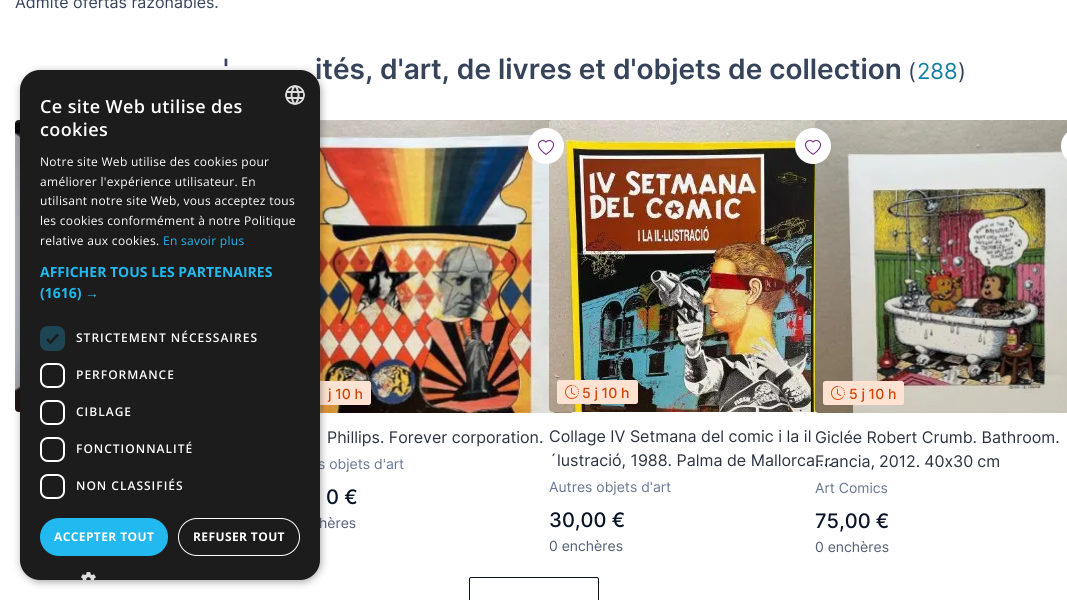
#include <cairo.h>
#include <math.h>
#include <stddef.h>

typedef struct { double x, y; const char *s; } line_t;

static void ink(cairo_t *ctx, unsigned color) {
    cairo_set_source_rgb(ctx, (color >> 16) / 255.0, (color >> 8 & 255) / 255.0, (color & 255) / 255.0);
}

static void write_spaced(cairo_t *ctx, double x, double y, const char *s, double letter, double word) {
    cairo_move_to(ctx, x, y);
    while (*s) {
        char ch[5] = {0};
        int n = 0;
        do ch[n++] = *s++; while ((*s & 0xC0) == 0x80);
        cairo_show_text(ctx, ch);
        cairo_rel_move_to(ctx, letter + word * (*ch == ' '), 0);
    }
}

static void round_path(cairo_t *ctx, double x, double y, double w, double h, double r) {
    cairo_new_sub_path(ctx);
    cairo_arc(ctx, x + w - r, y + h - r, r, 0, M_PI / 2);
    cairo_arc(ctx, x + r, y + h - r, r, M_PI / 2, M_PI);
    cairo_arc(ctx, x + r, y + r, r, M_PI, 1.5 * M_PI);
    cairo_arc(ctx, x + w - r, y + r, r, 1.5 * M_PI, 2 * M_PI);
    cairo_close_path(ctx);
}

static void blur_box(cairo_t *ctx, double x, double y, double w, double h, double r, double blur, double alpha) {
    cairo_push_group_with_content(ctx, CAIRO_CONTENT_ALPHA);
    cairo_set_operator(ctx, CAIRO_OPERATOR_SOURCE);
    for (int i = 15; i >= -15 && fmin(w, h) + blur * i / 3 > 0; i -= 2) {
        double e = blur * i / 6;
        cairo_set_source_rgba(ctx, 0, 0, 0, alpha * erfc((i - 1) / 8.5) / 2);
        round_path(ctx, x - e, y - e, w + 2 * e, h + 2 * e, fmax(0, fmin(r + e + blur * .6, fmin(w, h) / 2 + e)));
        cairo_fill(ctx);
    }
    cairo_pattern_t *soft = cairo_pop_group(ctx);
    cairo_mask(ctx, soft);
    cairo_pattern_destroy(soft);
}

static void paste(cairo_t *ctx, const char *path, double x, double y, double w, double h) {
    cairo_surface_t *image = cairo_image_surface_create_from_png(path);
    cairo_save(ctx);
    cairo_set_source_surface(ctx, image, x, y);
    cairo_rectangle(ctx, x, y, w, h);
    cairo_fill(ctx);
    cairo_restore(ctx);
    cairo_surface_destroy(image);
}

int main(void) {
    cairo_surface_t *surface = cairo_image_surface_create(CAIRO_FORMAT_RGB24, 1067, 600);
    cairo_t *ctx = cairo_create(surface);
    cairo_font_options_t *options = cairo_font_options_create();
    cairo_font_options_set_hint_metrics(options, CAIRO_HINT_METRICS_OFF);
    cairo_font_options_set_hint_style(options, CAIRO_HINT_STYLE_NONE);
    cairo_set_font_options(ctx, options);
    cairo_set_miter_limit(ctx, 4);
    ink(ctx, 0xFFFFFF);
    cairo_paint(ctx);
    cairo_select_font_face(ctx, "Inter", CAIRO_FONT_SLANT_NORMAL, CAIRO_FONT_WEIGHT_NORMAL);
    cairo_set_font_size(ctx, 16);
    ink(ctx, 0x36435A);
    cairo_move_to(ctx, 15, 8);
    cairo_show_text(ctx, "Admite ofertas razonables.");
    cairo_select_font_face(ctx, "Inter SemiBold", CAIRO_FONT_SLANT_NORMAL, CAIRO_FONT_WEIGHT_NORMAL);
    cairo_set_font_size(ctx, 28);
    cairo_move_to(ctx, 223, 79);
    cairo_show_text(ctx, "'");
    cairo_move_to(ctx, 315, 79);
    cairo_show_text(ctx, "ités, d'art, de livres et d'objets de collection");
    cairo_select_font_face(ctx, "Inter", CAIRO_FONT_SLANT_NORMAL, CAIRO_FONT_WEIGHT_NORMAL);
    cairo_set_font_size(ctx, 22);
    cairo_move_to(ctx, 908, 79);
    cairo_show_text(ctx, "(");
    ink(ctx, 0x0F7EA4);
    cairo_move_to(ctx, 917, 79);
    cairo_show_text(ctx, "288");
    ink(ctx, 0x36435A);
    cairo_move_to(ctx, 958, 79);
    cairo_show_text(ctx, ")");
    paste(ctx, "media/1.png", 15, 120, 5, 292);
    paste(ctx, "media/2.png", 320, 120, 253, 293);
    paste(ctx, "media/4.png", 549, 120, 270, 292);
    ink(ctx, 0xFFFFFF);
    cairo_arc(ctx, 546, 146, 18, 0, 2 * M_PI);
    cairo_fill(ctx);
    paste(ctx, "media/3.png", 538, 140, 16, 15);
    ink(ctx, 0xFFE2D1);
    round_path(ctx, 290.5, 381.5, 80, 23, 2);
    cairo_fill_preserve(ctx);
    cairo_set_line_width(ctx, 1);
    cairo_stroke(ctx);
    cairo_select_font_face(ctx, "Inter Medium", CAIRO_FONT_SLANT_NORMAL, CAIRO_FONT_WEIGHT_NORMAL);
    cairo_set_font_size(ctx, 14);
    ink(ctx, 0xD24304);
    cairo_move_to(ctx, 328, 399);
    cairo_show_text(ctx, "j 10 h");
    cairo_select_font_face(ctx, "Inter", CAIRO_FONT_SLANT_NORMAL, CAIRO_FONT_WEIGHT_NORMAL);
    cairo_set_font_size(ctx, 16);
    ink(ctx, 0x2B3340);
    cairo_move_to(ctx, 327, 443);
    cairo_show_text(ctx, "Phillips. Forever corporation.");
    cairo_set_font_size(ctx, 14);
    ink(ctx, 0x687792);
    cairo_move_to(ctx, 318, 469);
    cairo_show_text(ctx, "s objets d'art");
    cairo_select_font_face(ctx, "Inter Medium", CAIRO_FONT_SLANT_NORMAL, CAIRO_FONT_WEIGHT_NORMAL);
    cairo_set_font_size(ctx, 20);
    ink(ctx, 0x081327);
    cairo_move_to(ctx, 326, 504);
    cairo_show_text(ctx, "0 €");
    cairo_select_font_face(ctx, "Inter", CAIRO_FONT_SLANT_NORMAL, CAIRO_FONT_WEIGHT_NORMAL);
    cairo_set_font_size(ctx, 14);
    ink(ctx, 0x535F74);
    cairo_move_to(ctx, 319, 528);
    cairo_show_text(ctx, "hères");
    paste(ctx, "media/6.png", 815, 120, 252, 293);
    ink(ctx, 0xFFFFFF);
    cairo_arc(ctx, 813, 146, 18, 0, 2 * M_PI);
    cairo_fill(ctx);
    paste(ctx, "media/3.png", 805, 140, 16, 15);
    ink(ctx, 0xFFE2D1);
    round_path(ctx, 557.5, 380.5, 80, 23, 2);
    cairo_fill_preserve(ctx);
    cairo_stroke(ctx);
    paste(ctx, "media/5.png", 565, 385, 14, 14);
    cairo_select_font_face(ctx, "Inter Medium", CAIRO_FONT_SLANT_NORMAL, CAIRO_FONT_WEIGHT_NORMAL);
    ink(ctx, 0xD24304);
    cairo_move_to(ctx, 582, 398);
    cairo_show_text(ctx, "5 j 10 h");
    cairo_select_font_face(ctx, "Inter", CAIRO_FONT_SLANT_NORMAL, CAIRO_FONT_WEIGHT_NORMAL);
    cairo_set_font_size(ctx, 16);
    ink(ctx, 0x2B3340);
    cairo_move_to(ctx, 549, 442);
    cairo_show_text(ctx, "Collage IV Setmana del comic i la il");
    cairo_move_to(ctx, 549, 466);
    cairo_show_text(ctx, "´lustració, 1988. Palma de Mallorca.…");
    cairo_set_font_size(ctx, 14);
    ink(ctx, 0x687792);
    cairo_move_to(ctx, 549, 492);
    cairo_show_text(ctx, "Autres objets d'art");
    cairo_select_font_face(ctx, "Inter Medium", CAIRO_FONT_SLANT_NORMAL, CAIRO_FONT_WEIGHT_NORMAL);
    cairo_set_font_size(ctx, 20);
    ink(ctx, 0x081327);
    cairo_move_to(ctx, 549, 527);
    cairo_show_text(ctx, "30,00 €");
    cairo_select_font_face(ctx, "Inter", CAIRO_FONT_SLANT_NORMAL, CAIRO_FONT_WEIGHT_NORMAL);
    cairo_set_font_size(ctx, 14);
    ink(ctx, 0x535F74);
    cairo_move_to(ctx, 549, 551);
    cairo_show_text(ctx, "0 enchères");
    ink(ctx, 0xFFFFFF);
    round_path(ctx, 1061, 128, 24, 36, 18);
    cairo_fill(ctx);
    ink(ctx, 0xFFE2D1);
    round_path(ctx, 823.5, 381.5, 80, 23, 2);
    cairo_fill_preserve(ctx);
    cairo_stroke(ctx);
    paste(ctx, "media/5.png", 831, 386, 14, 14);
    cairo_select_font_face(ctx, "Inter Medium", CAIRO_FONT_SLANT_NORMAL, CAIRO_FONT_WEIGHT_NORMAL);
    ink(ctx, 0xD24304);
    cairo_move_to(ctx, 849, 399);
    cairo_show_text(ctx, "5 j 10 h");
    cairo_select_font_face(ctx, "Inter", CAIRO_FONT_SLANT_NORMAL, CAIRO_FONT_WEIGHT_NORMAL);
    cairo_set_font_size(ctx, 16);
    ink(ctx, 0x2B3340);
    cairo_move_to(ctx, 815, 443);
    cairo_show_text(ctx, "Giclée Robert Crumb. Bathroom.");
    write_spaced(ctx, 815, 467, "Francia, 2012. 40x30 cm", 0, -0.5);
    cairo_set_font_size(ctx, 14);
    ink(ctx, 0x687792);
    cairo_move_to(ctx, 815, 493);
    cairo_show_text(ctx, "Art Comics");
    cairo_select_font_face(ctx, "Inter Medium", CAIRO_FONT_SLANT_NORMAL, CAIRO_FONT_WEIGHT_NORMAL);
    cairo_set_font_size(ctx, 20);
    ink(ctx, 0x081327);
    cairo_move_to(ctx, 815, 528);
    cairo_show_text(ctx, "75,00 €");
    cairo_select_font_face(ctx, "Inter", CAIRO_FONT_SLANT_NORMAL, CAIRO_FONT_WEIGHT_NORMAL);
    cairo_set_font_size(ctx, 14);
    ink(ctx, 0x535F74);
    cairo_move_to(ctx, 815, 552);
    cairo_show_text(ctx, "0 enchères");
    round_path(ctx, 469.5, 577.5, 129, 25, 1.5);
    ink(ctx, 0x081327);
    cairo_stroke(ctx);
    ink(ctx, 0x000000);
    blur_box(ctx, 21, 72, 300, 510, 20, 4, 0.35);
    ink(ctx, 0x1C1C1C);
    round_path(ctx, 20, 70, 300, 510, 20);
    cairo_fill(ctx);
    paste(ctx, "media/7.png", 285, 85, 20, 20);
    cairo_select_font_face(ctx, "Open Sans SemiBold", CAIRO_FONT_SLANT_NORMAL, CAIRO_FONT_WEIGHT_NORMAL);
    cairo_set_font_size(ctx, 18);
    ink(ctx, 0xFFFFFF);
    write_spaced(ctx, 40, 113, "Ce site Web utilise des", 0.4, 0);
    write_spaced(ctx, 40, 136, "cookies", 0.4, 0);
    cairo_select_font_face(ctx, "Open Sans", CAIRO_FONT_SLANT_NORMAL, CAIRO_FONT_WEIGHT_NORMAL);
    cairo_set_font_size(ctx, 12);
    {
        static const line_t items[] = {
            {40, 166, "Notre site Web utilise des cookies pour"},
            {40, 186, "améliorer l'expérience utilisateur. En"},
            {40, 205, "utilisant notre site Web, vous acceptez tous"},
            {40, 225, "les cookies conformément à notre Politique"},
            {40, 245, "relative aux cookies."},
        };
        for (size_t i = 0; i < sizeof items / sizeof *items; i++) {
            write_spaced(ctx, items[i].x, items[i].y, items[i].s, 0.3, 0);
        }
    }
    ink(ctx, 0x22B8F0);
    write_spaced(ctx, 163, 245, "En savoir plus", 0.3, 0);
    cairo_select_font_face(ctx, "Open Sans", CAIRO_FONT_SLANT_NORMAL, CAIRO_FONT_WEIGHT_BOLD);
    cairo_set_font_size(ctx, 14);
    cairo_move_to(ctx, 40, 277);
    cairo_show_text(ctx, "AFFICHER TOUS LES PARTENAIRES");
    cairo_move_to(ctx, 40, 298);
    cairo_show_text(ctx, "(1616)");
    cairo_select_font_face(ctx, "Liberation Sans", CAIRO_FONT_SLANT_NORMAL, CAIRO_FONT_WEIGHT_BOLD);
    cairo_move_to(ctx, 85, 298);
    cairo_show_text(ctx, "→");
    ink(ctx, 0x1E4553);
    round_path(ctx, 40, 326, 25, 25, 8);
    cairo_fill(ctx);
    cairo_new_path(ctx);
    cairo_move_to(ctx, 47, 339);
    cairo_line_to(ctx, 50.5, 342.5);
    cairo_line_to(ctx, 58, 334.5);
    ink(ctx, 0x1C1C1C);
    cairo_set_line_width(ctx, 2.6);
    cairo_stroke(ctx);
    cairo_select_font_face(ctx, "Open Sans SemiBold", CAIRO_FONT_SLANT_NORMAL, CAIRO_FONT_WEIGHT_NORMAL);
    cairo_set_font_size(ctx, 12);
    ink(ctx, 0xFFFFFF);
    write_spaced(ctx, 76, 342, "STRICTEMENT NÉCESSAIRES", 1, 0);
    round_path(ctx, 41, 364, 23, 23, 7);
    cairo_set_line_width(ctx, 2);
    cairo_stroke(ctx);
    write_spaced(ctx, 76, 379, "PERFORMANCE", 1, 0);
    round_path(ctx, 41, 401, 23, 23, 7);
    cairo_stroke(ctx);
    write_spaced(ctx, 76, 416, "CIBLAGE", 1, 0);
    round_path(ctx, 41, 438, 23, 23, 7);
    cairo_stroke(ctx);
    write_spaced(ctx, 76, 453, "FONCTIONNALITÉ", 1, 0);
    round_path(ctx, 41, 475, 23, 23, 7);
    cairo_stroke(ctx);
    write_spaced(ctx, 76, 490, "NON CLASSIFIÉS", 1, 0);
    ink(ctx, 0x22B8F0);
    round_path(ctx, 40, 518, 128, 38, 19);
    cairo_fill(ctx);
    cairo_select_font_face(ctx, "Open Sans", CAIRO_FONT_SLANT_NORMAL, CAIRO_FONT_WEIGHT_BOLD);
    ink(ctx, 0xFFFFFF);
    write_spaced(ctx, 54, 541, "ACCEPTER TOUT", 0.4, 0);
    round_path(ctx, 178.5, 518.5, 121, 37, 18.5);
    cairo_set_line_width(ctx, 1);
    cairo_stroke(ctx);
    write_spaced(ctx, 193, 541, "REFUSER TOUT", 0.4, 0);
    paste(ctx, "media/8.png", 81, 572, 15, 8);
    cairo_surface_write_to_png(surface, "image.png");
    cairo_font_options_destroy(options);
    cairo_destroy(ctx);
    cairo_surface_destroy(surface);
    return 0;
}
